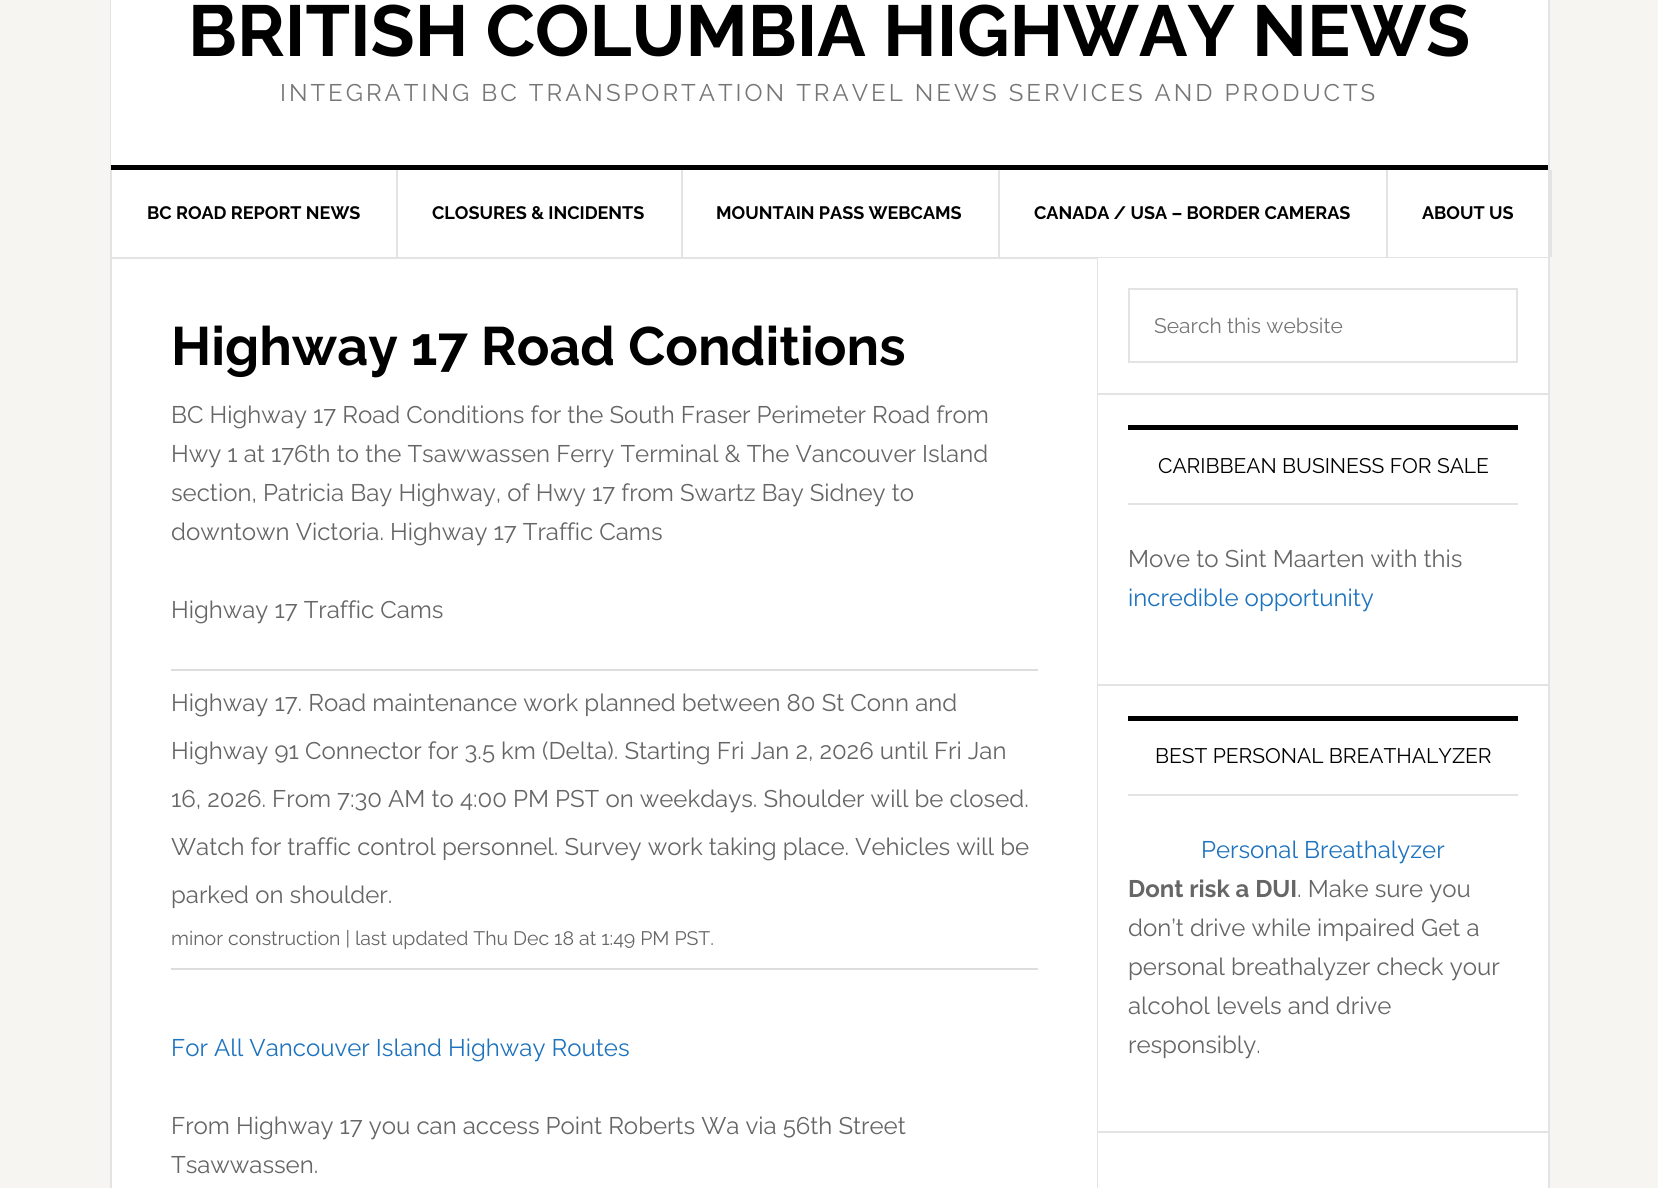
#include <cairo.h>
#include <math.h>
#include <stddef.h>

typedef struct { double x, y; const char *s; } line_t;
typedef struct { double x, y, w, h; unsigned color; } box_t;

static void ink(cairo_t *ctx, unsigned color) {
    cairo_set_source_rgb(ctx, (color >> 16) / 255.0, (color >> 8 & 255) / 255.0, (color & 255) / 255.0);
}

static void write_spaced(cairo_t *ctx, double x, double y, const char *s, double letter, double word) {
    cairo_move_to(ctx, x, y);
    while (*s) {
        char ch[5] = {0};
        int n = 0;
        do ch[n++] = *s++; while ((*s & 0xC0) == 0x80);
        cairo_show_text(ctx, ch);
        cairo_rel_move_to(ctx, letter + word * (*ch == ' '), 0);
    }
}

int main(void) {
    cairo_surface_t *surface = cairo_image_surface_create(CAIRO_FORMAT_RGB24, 1658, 1188);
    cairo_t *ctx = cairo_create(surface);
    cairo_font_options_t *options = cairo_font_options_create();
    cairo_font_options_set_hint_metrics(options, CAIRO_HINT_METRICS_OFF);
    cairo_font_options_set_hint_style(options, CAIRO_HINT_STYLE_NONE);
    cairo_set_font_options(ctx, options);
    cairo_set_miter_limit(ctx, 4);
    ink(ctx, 0xF6F5F2);
    cairo_paint(ctx);
    ink(ctx, 0xFFFFFF);
    cairo_rectangle(ctx, 112, 170, 1436, 1018);
    cairo_fill(ctx);
    cairo_rectangle(ctx, 111, -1, 1438, 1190);
    ink(ctx, 0xE3E3E3);
    cairo_stroke(ctx);
    ink(ctx, 0xFFFFFF);
    cairo_rectangle(ctx, 111, 0, 1437, 165);
    cairo_fill(ctx);
    ink(ctx, 0x000000);
    cairo_rectangle(ctx, 111, 165, 1437, 5);
    cairo_fill(ctx);
    cairo_select_font_face(ctx, "Raleway", CAIRO_FONT_SLANT_NORMAL, CAIRO_FONT_WEIGHT_BOLD);
    cairo_set_font_size(ctx, 72);
    cairo_move_to(ctx, 188, 56);
    cairo_show_text(ctx, "BRITISH COLUMBIA HIGHWAY NEWS");
    cairo_select_font_face(ctx, "Raleway", CAIRO_FONT_SLANT_NORMAL, CAIRO_FONT_WEIGHT_NORMAL);
    cairo_set_font_size(ctx, 24);
    ink(ctx, 0x767676);
    write_spaced(ctx, 280, 101, "INTEGRATING BC TRANSPORTATION TRAVEL NEWS SERVICES AND PRODUCTS", 3, 0);
    ink(ctx, 0xE3E3E3);
    cairo_rectangle(ctx, 111, 257, 1437, 2);
    cairo_fill(ctx);
    cairo_rectangle(ctx, 396, 170, 2, 87);
    cairo_fill(ctx);
    cairo_select_font_face(ctx, "Raleway", CAIRO_FONT_SLANT_NORMAL, CAIRO_FONT_WEIGHT_BOLD);
    cairo_set_font_size(ctx, 18);
    ink(ctx, 0x000000);
    cairo_move_to(ctx, 147, 219);
    cairo_show_text(ctx, "BC ROAD REPORT NEWS");
    ink(ctx, 0xE3E3E3);
    cairo_rectangle(ctx, 681, 170, 2, 87);
    cairo_fill(ctx);
    ink(ctx, 0x000000);
    cairo_move_to(ctx, 432, 219);
    cairo_show_text(ctx, "CLOSURES & INCIDENTS");
    ink(ctx, 0xE3E3E3);
    cairo_rectangle(ctx, 998, 170, 2, 87);
    cairo_fill(ctx);
    ink(ctx, 0x000000);
    cairo_move_to(ctx, 716, 219);
    cairo_show_text(ctx, "MOUNTAIN PASS WEBCAMS");
    ink(ctx, 0xE3E3E3);
    cairo_rectangle(ctx, 1386, 170, 2, 87);
    cairo_fill(ctx);
    ink(ctx, 0x000000);
    cairo_move_to(ctx, 1034, 219);
    cairo_show_text(ctx, "CANADA / USA – BORDER CAMERAS");
    ink(ctx, 0xE3E3E3);
    cairo_rectangle(ctx, 1550, 170, 2, 87);
    cairo_fill(ctx);
    ink(ctx, 0x000000);
    cairo_move_to(ctx, 1422, 219);
    cairo_show_text(ctx, "ABOUT US");
    ink(ctx, 0xE3E3E3);
    cairo_rectangle(ctx, 1097, 258, 1, 930);
    cairo_fill(ctx);
    cairo_set_font_size(ctx, 54);
    ink(ctx, 0x000000);
    cairo_move_to(ctx, 171, 365);
    cairo_show_text(ctx, "Highway 17 Road Conditions");
    cairo_select_font_face(ctx, "Raleway", CAIRO_FONT_SLANT_NORMAL, CAIRO_FONT_WEIGHT_NORMAL);
    cairo_set_font_size(ctx, 24);
    ink(ctx, 0x666666);
    {
        static const line_t items[] = {
            {171, 423, "BC Highway 17 Road Conditions for the South Fraser Perimeter Road from"},
            {171, 462, "Hwy 1 at 176th to the Tsawwassen Ferry Terminal & The Vancouver Island"},
            {171, 501, "section, Patricia Bay Highway, of Hwy 17 from Swartz Bay Sidney to"},
            {171, 540, "downtown Victoria. Highway 17 Traffic Cams"},
            {171, 618, "Highway 17 Traffic Cams"},
        };
        for (size_t i = 0; i < sizeof items / sizeof *items; i++) {
            cairo_move_to(ctx, items[i].x, items[i].y);
            cairo_show_text(ctx, items[i].s);
        }
    }
    ink(ctx, 0xDDDDDD);
    cairo_rectangle(ctx, 171, 968, 867, 2);
    cairo_fill(ctx);
    cairo_rectangle(ctx, 171, 669, 867, 2);
    cairo_fill(ctx);
    ink(ctx, 0x666666);
    {
        static const line_t items[] = {
            {171, 711, "Highway 17. Road maintenance work planned between 80 St Conn and"},
            {171, 759, "Highway 91 Connector for 3.5 km (Delta). Starting Fri Jan 2, 2026 until Fri Jan"},
            {171, 807, "16, 2026. From 7:30 AM to 4:00 PM PST on weekdays. Shoulder will be closed."},
            {171, 855, "Watch for traffic control personnel. Survey work taking place. Vehicles will be"},
            {171, 903, "parked on shoulder."},
        };
        for (size_t i = 0; i < sizeof items / sizeof *items; i++) {
            cairo_move_to(ctx, items[i].x, items[i].y);
            cairo_show_text(ctx, items[i].s);
        }
    }
    cairo_set_font_size(ctx, 19.5);
    cairo_move_to(ctx, 171, 945);
    cairo_show_text(ctx, "minor construction | last updated Thu Dec 18 at 1:49 PM PST.");
    cairo_set_font_size(ctx, 24);
    ink(ctx, 0x1E73BE);
    cairo_move_to(ctx, 171, 1056);
    cairo_show_text(ctx, "For All Vancouver Island Highway Routes");
    ink(ctx, 0x666666);
    cairo_move_to(ctx, 171, 1134);
    cairo_show_text(ctx, "From Highway 17 you can access Point Roberts Wa via 56th Street");
    cairo_move_to(ctx, 171, 1173);
    cairo_show_text(ctx, "Tsawwassen.");
    ink(ctx, 0xFFFFFF);
    cairo_rectangle(ctx, 1098, 258, 450, 1);
    cairo_fill(ctx);
    ink(ctx, 0xE3E3E3);
    cairo_rectangle(ctx, 1098, 393, 450, 2);
    cairo_fill(ctx);
    cairo_rectangle(ctx, 1129, 289, 388, 73);
    cairo_stroke(ctx);
    cairo_set_font_size(ctx, 21);
    ink(ctx, 0x767676);
    cairo_move_to(ctx, 1154, 333);
    cairo_show_text(ctx, "Search this website");
    {
        static const box_t items[] = {
            {1098, 684, 450, 2, 0xE3E3E3},
            {1128, 425, 390, 5, 0x000000},
            {1128, 503, 390, 2, 0xE3E3E3},
        };
        for (size_t i = 0; i < sizeof items / sizeof *items; i++) {
            ink(ctx, items[i].color);
            cairo_rectangle(ctx, items[i].x, items[i].y, items[i].w, items[i].h);
            cairo_fill(ctx);
        }
    }
    ink(ctx, 0x000000);
    cairo_move_to(ctx, 1158, 473);
    cairo_show_text(ctx, "CARIBBEAN BUSINESS FOR SALE");
    cairo_set_font_size(ctx, 24);
    ink(ctx, 0x666666);
    cairo_move_to(ctx, 1128, 567);
    cairo_show_text(ctx, "Move to Sint Maarten with this");
    ink(ctx, 0x1E73BE);
    cairo_move_to(ctx, 1128, 606);
    cairo_show_text(ctx, "incredible opportunity");
    {
        static const box_t items[] = {
            {1098, 1131, 450, 2, 0xE3E3E3},
            {1128, 716, 390, 5, 0x000000},
            {1128, 794, 390, 2, 0xE3E3E3},
        };
        for (size_t i = 0; i < sizeof items / sizeof *items; i++) {
            ink(ctx, items[i].color);
            cairo_rectangle(ctx, items[i].x, items[i].y, items[i].w, items[i].h);
            cairo_fill(ctx);
        }
    }
    cairo_set_font_size(ctx, 21);
    ink(ctx, 0x000000);
    cairo_move_to(ctx, 1155, 763);
    cairo_show_text(ctx, "BEST PERSONAL BREATHALYZER");
    cairo_set_font_size(ctx, 24);
    ink(ctx, 0x1E73BE);
    cairo_move_to(ctx, 1201, 858);
    cairo_show_text(ctx, "Personal Breathalyzer");
    cairo_select_font_face(ctx, "Raleway", CAIRO_FONT_SLANT_NORMAL, CAIRO_FONT_WEIGHT_BOLD);
    ink(ctx, 0x666666);
    cairo_move_to(ctx, 1128, 897);
    cairo_show_text(ctx, "Dont risk a DUI");
    cairo_select_font_face(ctx, "Raleway", CAIRO_FONT_SLANT_NORMAL, CAIRO_FONT_WEIGHT_NORMAL);
    {
        static const line_t items[] = {
            {1297, 897, ". Make sure you"},
            {1128, 936, "don’t drive while impaired Get a"},
            {1128, 975, "personal breathalyzer check your"},
            {1128, 1014, "alcohol levels and drive"},
            {1128, 1053, "responsibly."},
        };
        for (size_t i = 0; i < sizeof items / sizeof *items; i++) {
            cairo_move_to(ctx, items[i].x, items[i].y);
            cairo_show_text(ctx, items[i].s);
        }
    }
    cairo_surface_write_to_png(surface, "image.png");
    cairo_font_options_destroy(options);
    cairo_destroy(ctx);
    cairo_surface_destroy(surface);
    return 0;
}
